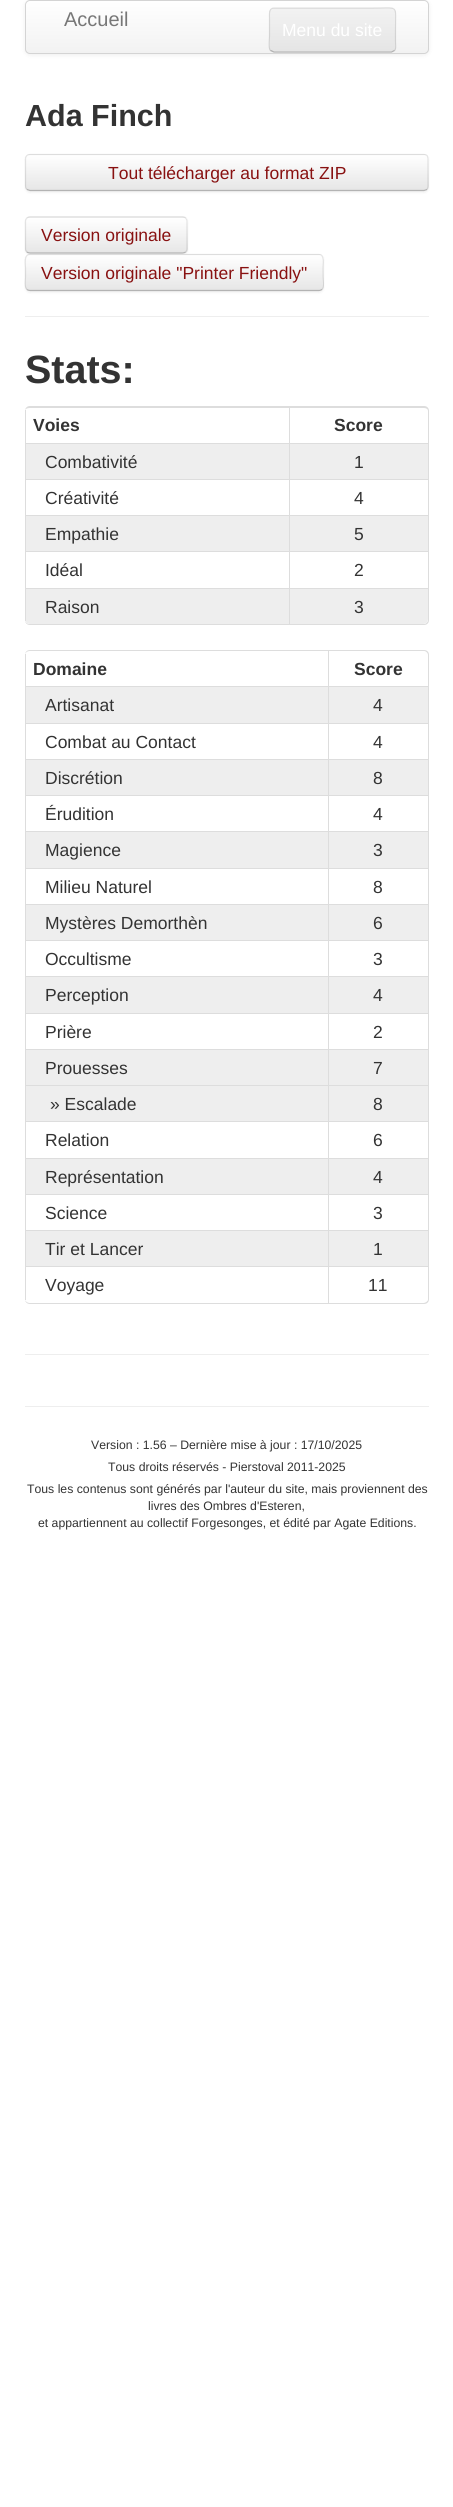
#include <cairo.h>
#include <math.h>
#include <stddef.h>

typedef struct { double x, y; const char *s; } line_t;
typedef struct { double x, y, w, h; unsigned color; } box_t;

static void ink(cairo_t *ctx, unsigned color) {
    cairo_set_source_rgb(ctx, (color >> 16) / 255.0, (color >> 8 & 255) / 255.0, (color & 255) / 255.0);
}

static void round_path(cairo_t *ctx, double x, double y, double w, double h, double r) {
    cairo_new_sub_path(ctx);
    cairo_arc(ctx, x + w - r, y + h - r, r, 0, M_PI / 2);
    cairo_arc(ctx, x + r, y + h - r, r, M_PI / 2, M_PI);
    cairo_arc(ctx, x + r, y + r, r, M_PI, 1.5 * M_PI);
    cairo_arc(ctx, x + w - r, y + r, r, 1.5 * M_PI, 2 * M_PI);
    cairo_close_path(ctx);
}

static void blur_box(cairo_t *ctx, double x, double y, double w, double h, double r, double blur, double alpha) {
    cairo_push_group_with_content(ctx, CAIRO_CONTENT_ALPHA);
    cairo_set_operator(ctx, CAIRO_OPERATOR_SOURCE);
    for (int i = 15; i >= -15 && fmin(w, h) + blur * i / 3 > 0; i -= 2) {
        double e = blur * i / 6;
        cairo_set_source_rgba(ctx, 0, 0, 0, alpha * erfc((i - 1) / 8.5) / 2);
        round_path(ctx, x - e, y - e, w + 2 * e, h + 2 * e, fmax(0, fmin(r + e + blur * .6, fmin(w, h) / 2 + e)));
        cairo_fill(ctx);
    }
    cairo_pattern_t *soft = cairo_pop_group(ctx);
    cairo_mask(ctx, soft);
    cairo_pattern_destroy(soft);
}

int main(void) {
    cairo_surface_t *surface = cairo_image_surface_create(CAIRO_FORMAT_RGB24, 453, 2507);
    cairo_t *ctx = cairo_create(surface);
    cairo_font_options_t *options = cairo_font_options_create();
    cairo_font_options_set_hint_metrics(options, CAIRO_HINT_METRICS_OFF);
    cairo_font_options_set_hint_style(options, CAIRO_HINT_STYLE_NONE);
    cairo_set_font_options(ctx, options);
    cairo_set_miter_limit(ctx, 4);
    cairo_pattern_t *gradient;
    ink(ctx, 0xFFFFFF);
    cairo_paint(ctx);
    ink(ctx, 0x000000);
    blur_box(ctx, 25, 1, 404, 54, 5, 2.5, 0.07);
    cairo_save(ctx);
    round_path(ctx, 25, 0, 404, 54, 5);
    cairo_clip(ctx);
    gradient = cairo_pattern_create_linear(227, 1.2, 227, 53);
    cairo_pattern_add_color_stop_rgba(gradient, 0, 1, 1, 1, 1);
    cairo_pattern_add_color_stop_rgba(gradient, 1, 0.949, 0.949, 0.949, 1);
    cairo_set_source(ctx, gradient);
    cairo_pattern_destroy(gradient);
    cairo_rectangle(ctx, 25, 1, 404, 52);
    cairo_fill(ctx);
    cairo_restore(ctx);
    round_path(ctx, 25.5, 0.5, 403, 53, 4.5);
    ink(ctx, 0xD4D4D4);
    cairo_set_line_width(ctx, 1);
    cairo_stroke(ctx);
    cairo_select_font_face(ctx, "Liberation Sans", CAIRO_FONT_SLANT_NORMAL, CAIRO_FONT_WEIGHT_NORMAL);
    cairo_set_font_size(ctx, 20);
    ink(ctx, 0x777777);
    cairo_move_to(ctx, 64, 26);
    cairo_show_text(ctx, "Accueil");
    cairo_set_source_rgba(ctx, 1, 1, 1, 0.07);
    cairo_new_path(ctx);
    cairo_move_to(ctx, 269, 49);
    cairo_curve_to(ctx, 269, 52, 271, 54, 274, 54);
    cairo_line_to(ctx, 391, 54);
    cairo_curve_to(ctx, 394, 54, 396, 52, 396, 49);
    cairo_curve_to(ctx, 395, 51, 393, 52, 391, 52);
    cairo_line_to(ctx, 274, 52);
    cairo_curve_to(ctx, 272, 52, 270, 51, 269, 49);
    cairo_close_path(ctx);
    cairo_fill(ctx);
    ink(ctx, 0xEDEDED);
    round_path(ctx, 269, 8, 127, 45, 5);
    cairo_fill(ctx);
    cairo_save(ctx);
    round_path(ctx, 269, 8, 127, 45, 5);
    cairo_clip(ctx);
    gradient = cairo_pattern_create_linear(333, 9, 333, 51);
    cairo_pattern_add_color_stop_rgba(gradient, 0, 0.949, 0.949, 0.949, 1);
    cairo_pattern_add_color_stop_rgba(gradient, 1, 0.898, 0.898, 0.898, 1);
    cairo_set_source(ctx, gradient);
    cairo_pattern_destroy(gradient);
    cairo_rectangle(ctx, 269, 9, 127, 42);
    cairo_fill(ctx);
    cairo_restore(ctx);
    cairo_new_path(ctx);
    cairo_move_to(ctx, 394.5, 50.5);
    cairo_line_to(ctx, 391.5, 52);
    cairo_line_to(ctx, 293.5, 52);
    cairo_line_to(ctx, 274, 52);
    cairo_line_to(ctx, 270.5, 50.5);
    cairo_set_source_rgba(ctx, 0, 0, 0, 0.25);
    cairo_set_line_width(ctx, 1.2);
    cairo_stroke(ctx);
    cairo_new_path(ctx);
    cairo_move_to(ctx, 270.5, 50.5);
    cairo_curve_to(ctx, 268, 48, 269.5, 39, 269.5, 36);
    cairo_line_to(ctx, 269.5, 18.5);
    cairo_curve_to(ctx, 269.5, 15, 268.5, 8, 274, 8);
    cairo_line_to(ctx, 371.5, 8);
    cairo_curve_to(ctx, 399.5, 8, 395.5, 3.5, 395.5, 30);
    cairo_line_to(ctx, 395.5, 41.5);
    cairo_curve_to(ctx, 395.5, 44, 396.5, 48.5, 394.5, 50.5);
    cairo_set_source_rgba(ctx, 0, 0, 0, 0.1);
    cairo_stroke(ctx);
    cairo_set_font_size(ctx, 17.5);
    ink(ctx, 0xFFFFFF);
    cairo_move_to(ctx, 282, 36);
    cairo_show_text(ctx, "Menu du site");
    cairo_select_font_face(ctx, "Liberation Sans", CAIRO_FONT_SLANT_NORMAL, CAIRO_FONT_WEIGHT_BOLD);
    cairo_set_font_size(ctx, 30.5);
    ink(ctx, 0x333333);
    cairo_move_to(ctx, 25, 126);
    cairo_show_text(ctx, "Ada Finch");
    ink(ctx, 0x000000);
    blur_box(ctx, 25, 155, 404, 38, 5, 1, 0.05);
    ink(ctx, 0xF5F5F5);
    round_path(ctx, 25, 154, 404, 37, 5);
    cairo_fill(ctx);
    cairo_save(ctx);
    round_path(ctx, 25, 154, 404, 37, 5);
    cairo_clip(ctx);
    gradient = cairo_pattern_create_linear(227, 155, 227, 190);
    cairo_pattern_add_color_stop_rgba(gradient, 0, 1, 1, 1, 1);
    cairo_pattern_add_color_stop_rgba(gradient, 1, 0.902, 0.902, 0.902, 1);
    cairo_set_source(ctx, gradient);
    cairo_pattern_destroy(gradient);
    cairo_rectangle(ctx, 25, 155, 404, 35);
    cairo_fill(ctx);
    cairo_restore(ctx);
    cairo_new_path(ctx);
    cairo_move_to(ctx, 427, 189.5);
    cairo_line_to(ctx, 424, 190.5);
    cairo_line_to(ctx, 30, 190.5);
    cairo_line_to(ctx, 27, 189.5);
    ink(ctx, 0xB3B3B3);
    cairo_stroke(ctx);
    cairo_new_path(ctx);
    cairo_move_to(ctx, 27, 189.5);
    cairo_curve_to(ctx, 26, 188.5, 25.5, 187.5, 25.5, 186);
    cairo_line_to(ctx, 25.5, 159);
    cairo_curve_to(ctx, 25.5, 157.5, 26, 156.5, 27, 155.5);
    cairo_curve_to(ctx, 27.5, 155, 29, 154.5, 30, 154.5);
    cairo_line_to(ctx, 424, 154.5);
    cairo_curve_to(ctx, 425, 154.5, 426, 155, 427, 155.5);
    cairo_curve_to(ctx, 427.5, 156.5, 428, 157.5, 428, 159);
    cairo_line_to(ctx, 428, 186);
    cairo_curve_to(ctx, 428, 187.5, 427.5, 188.5, 427, 189.5);
    cairo_set_source_rgba(ctx, 0, 0, 0, 0.1);
    cairo_stroke(ctx);
    cairo_select_font_face(ctx, "Liberation Sans", CAIRO_FONT_SLANT_NORMAL, CAIRO_FONT_WEIGHT_NORMAL);
    cairo_set_font_size(ctx, 17.5);
    ink(ctx, 0x881111);
    cairo_move_to(ctx, 108, 179);
    cairo_show_text(ctx, "Tout télécharger au format ZIP");
    ink(ctx, 0x000000);
    blur_box(ctx, 25, 218, 163, 37, 5, 1, 0.05);
    ink(ctx, 0xF5F5F5);
    round_path(ctx, 25, 216, 163, 38, 5);
    cairo_fill(ctx);
    cairo_save(ctx);
    round_path(ctx, 25, 216, 163, 38, 5);
    cairo_clip(ctx);
    gradient = cairo_pattern_create_linear(106, 218, 106, 253);
    cairo_pattern_add_color_stop_rgba(gradient, 0, 1, 1, 1, 1);
    cairo_pattern_add_color_stop_rgba(gradient, 1, 0.902, 0.902, 0.902, 1);
    cairo_set_source(ctx, gradient);
    cairo_pattern_destroy(gradient);
    cairo_rectangle(ctx, 25, 218, 163, 35);
    cairo_fill(ctx);
    cairo_restore(ctx);
    cairo_new_path(ctx);
    cairo_move_to(ctx, 185.5, 252);
    cairo_curve_to(ctx, 185, 252.5, 183.5, 253, 182.5, 253);
    cairo_line_to(ctx, 30, 253);
    cairo_curve_to(ctx, 29, 253, 27.5, 252.5, 27, 252);
    ink(ctx, 0xB3B3B3);
    cairo_stroke(ctx);
    cairo_new_path(ctx);
    cairo_move_to(ctx, 27, 252);
    cairo_curve_to(ctx, 26, 251, 25.5, 250, 25.5, 249);
    cairo_line_to(ctx, 25.5, 221);
    cairo_curve_to(ctx, 25.5, 220, 26, 219, 27, 218);
    cairo_curve_to(ctx, 27.5, 217.5, 29, 217, 30, 217);
    cairo_line_to(ctx, 182.5, 217);
    cairo_curve_to(ctx, 183.5, 217, 185, 217.5, 185.5, 218);
    cairo_curve_to(ctx, 186.5, 219, 187, 220, 187, 221);
    cairo_line_to(ctx, 187, 249);
    cairo_curve_to(ctx, 187, 250, 186.5, 251, 185.5, 252);
    cairo_set_source_rgba(ctx, 0, 0, 0, 0.1);
    cairo_stroke(ctx);
    ink(ctx, 0x881111);
    cairo_move_to(ctx, 41, 241);
    cairo_show_text(ctx, "Version originale");
    ink(ctx, 0x000000);
    blur_box(ctx, 25, 255, 299, 38, 5, 1, 0.05);
    ink(ctx, 0xF5F5F5);
    round_path(ctx, 25, 254, 299, 37, 5);
    cairo_fill(ctx);
    cairo_save(ctx);
    round_path(ctx, 25, 254, 299, 37, 5);
    cairo_clip(ctx);
    gradient = cairo_pattern_create_linear(174, 255, 174, 290);
    cairo_pattern_add_color_stop_rgba(gradient, 0, 1, 1, 1, 1);
    cairo_pattern_add_color_stop_rgba(gradient, 1, 0.902, 0.902, 0.902, 1);
    cairo_set_source(ctx, gradient);
    cairo_pattern_destroy(gradient);
    cairo_rectangle(ctx, 25, 255, 299, 35);
    cairo_fill(ctx);
    cairo_restore(ctx);
    cairo_set_source_rgba(ctx, 1, 1, 1, 0.2);
    cairo_new_path(ctx);
    cairo_move_to(ctx, 30, 256);
    cairo_line_to(ctx, 319, 256);
    cairo_curve_to(ctx, 324, 256, 322, 267, 322, 269);
    cairo_line_to(ctx, 322, 289);
    cairo_curve_to(ctx, 323, 288, 323, 287, 323, 286);
    cairo_line_to(ctx, 323, 259);
    cairo_curve_to(ctx, 323, 257, 321, 255, 319, 255);
    cairo_line_to(ctx, 30, 255);
    cairo_curve_to(ctx, 28, 255, 26, 257, 26, 259);
    cairo_line_to(ctx, 26, 260);
    cairo_curve_to(ctx, 26, 258, 28, 256, 30, 256);
    cairo_close_path(ctx);
    cairo_fill(ctx);
    cairo_new_path(ctx);
    cairo_move_to(ctx, 322, 289.5);
    cairo_curve_to(ctx, 321, 290, 320, 290.5, 319, 290.5);
    cairo_line_to(ctx, 30, 290.5);
    cairo_curve_to(ctx, 29, 290.5, 27.5, 290, 27, 289.5);
    ink(ctx, 0xB3B3B3);
    cairo_stroke(ctx);
    cairo_new_path(ctx);
    cairo_move_to(ctx, 27, 289.5);
    cairo_curve_to(ctx, 24, 286.5, 25.5, 280, 25.5, 277);
    cairo_line_to(ctx, 25.5, 268);
    cairo_curve_to(ctx, 25.5, 264.5, 23.5, 254.5, 30, 254.5);
    cairo_line_to(ctx, 319, 254.5);
    cairo_curve_to(ctx, 325, 254.5, 323, 264.5, 323, 268);
    cairo_line_to(ctx, 323, 277);
    cairo_curve_to(ctx, 323, 280, 324.5, 286.5, 322, 289.5);
    cairo_set_source_rgba(ctx, 0, 0, 0, 0.1);
    cairo_stroke(ctx);
    ink(ctx, 0x881111);
    cairo_move_to(ctx, 41, 279);
    cairo_show_text(ctx, "Version originale \"Printer Friendly\"");
    ink(ctx, 0xEEEEEE);
    cairo_rectangle(ctx, 25, 316, 404, 1);
    cairo_fill(ctx);
    cairo_select_font_face(ctx, "Liberation Sans", CAIRO_FONT_SLANT_NORMAL, CAIRO_FONT_WEIGHT_BOLD);
    cairo_set_font_size(ctx, 39.5);
    ink(ctx, 0x333333);
    cairo_move_to(ctx, 25, 383);
    cairo_show_text(ctx, "Stats:");
    ink(ctx, 0xDDDDDD);
    cairo_set_fill_rule(ctx, CAIRO_FILL_RULE_EVEN_ODD);
    cairo_new_path(ctx);
    cairo_move_to(ctx, 30, 406);
    cairo_line_to(ctx, 424, 406);
    cairo_curve_to(ctx, 427, 406, 429, 408, 429, 411);
    cairo_line_to(ctx, 429, 620);
    cairo_curve_to(ctx, 429, 623, 427, 625, 424, 625);
    cairo_line_to(ctx, 30, 625);
    cairo_curve_to(ctx, 27, 625, 25, 623, 25, 620);
    cairo_line_to(ctx, 25, 411);
    cairo_curve_to(ctx, 25, 408, 27, 406, 30, 406);
    cairo_close_path(ctx);
    cairo_move_to(ctx, 30, 408);
    cairo_line_to(ctx, 424, 408);
    cairo_curve_to(ctx, 426, 408, 428, 409, 428, 411);
    cairo_line_to(ctx, 428, 620);
    cairo_curve_to(ctx, 428, 622, 426, 624, 424, 624);
    cairo_line_to(ctx, 30, 624);
    cairo_curve_to(ctx, 27, 624, 25, 622, 25, 620);
    cairo_line_to(ctx, 25, 411);
    cairo_curve_to(ctx, 25, 409, 27, 408, 30, 408);
    cairo_close_path(ctx);
    cairo_fill(ctx);
    cairo_rectangle(ctx, 25, 410, 1, 33);
    cairo_fill(ctx);
    cairo_set_font_size(ctx, 17.5);
    ink(ctx, 0x333333);
    cairo_move_to(ctx, 33, 431);
    cairo_show_text(ctx, "Voies");
    ink(ctx, 0xDDDDDD);
    cairo_rectangle(ctx, 289, 408, 1, 35);
    cairo_fill(ctx);
    ink(ctx, 0x333333);
    cairo_move_to(ctx, 334, 431);
    cairo_show_text(ctx, "Score");
    {
        static const box_t items[] = {
            {26, 444, 263, 35, 0xEEEEEE},
            {25, 443, 403, 1, 0xDDDDDD},
            {25, 443, 1, 36, 0xDDDDDD},
        };
        for (size_t i = 0; i < sizeof items / sizeof *items; i++) {
            ink(ctx, items[i].color);
            cairo_rectangle(ctx, items[i].x, items[i].y, items[i].w, items[i].h);
            cairo_fill(ctx);
        }
    }
    cairo_select_font_face(ctx, "Liberation Sans", CAIRO_FONT_SLANT_NORMAL, CAIRO_FONT_WEIGHT_NORMAL);
    ink(ctx, 0x333333);
    cairo_move_to(ctx, 45, 468);
    cairo_show_text(ctx, "Combativité");
    ink(ctx, 0xEEEEEE);
    cairo_rectangle(ctx, 290, 444, 138, 35);
    cairo_fill(ctx);
    ink(ctx, 0xDDDDDD);
    cairo_rectangle(ctx, 289, 443, 1, 36);
    cairo_fill(ctx);
    ink(ctx, 0x333333);
    cairo_move_to(ctx, 354, 468);
    cairo_show_text(ctx, "1");
    ink(ctx, 0xDDDDDD);
    cairo_rectangle(ctx, 25, 479, 403, 1);
    cairo_fill(ctx);
    cairo_rectangle(ctx, 25, 479, 1, 36);
    cairo_fill(ctx);
    ink(ctx, 0x333333);
    cairo_move_to(ctx, 45, 504);
    cairo_show_text(ctx, "Créativité");
    ink(ctx, 0xDDDDDD);
    cairo_rectangle(ctx, 289, 479, 1, 36);
    cairo_fill(ctx);
    ink(ctx, 0x333333);
    cairo_move_to(ctx, 354, 504);
    cairo_show_text(ctx, "4");
    {
        static const box_t items[] = {
            {26, 516, 263, 35, 0xEEEEEE},
            {25, 515, 403, 1, 0xDDDDDD},
            {25, 515, 1, 36, 0xDDDDDD},
        };
        for (size_t i = 0; i < sizeof items / sizeof *items; i++) {
            ink(ctx, items[i].color);
            cairo_rectangle(ctx, items[i].x, items[i].y, items[i].w, items[i].h);
            cairo_fill(ctx);
        }
    }
    ink(ctx, 0x333333);
    cairo_move_to(ctx, 45, 540);
    cairo_show_text(ctx, "Empathie");
    ink(ctx, 0xEEEEEE);
    cairo_rectangle(ctx, 290, 516, 138, 35);
    cairo_fill(ctx);
    ink(ctx, 0xDDDDDD);
    cairo_rectangle(ctx, 289, 515, 1, 36);
    cairo_fill(ctx);
    ink(ctx, 0x333333);
    cairo_move_to(ctx, 354, 540);
    cairo_show_text(ctx, "5");
    ink(ctx, 0xDDDDDD);
    cairo_rectangle(ctx, 25, 551, 403, 1);
    cairo_fill(ctx);
    cairo_rectangle(ctx, 25, 551, 1, 37);
    cairo_fill(ctx);
    ink(ctx, 0x333333);
    cairo_move_to(ctx, 45, 576);
    cairo_show_text(ctx, "Idéal");
    ink(ctx, 0xDDDDDD);
    cairo_rectangle(ctx, 289, 551, 1, 37);
    cairo_fill(ctx);
    ink(ctx, 0x333333);
    cairo_move_to(ctx, 354, 576);
    cairo_show_text(ctx, "2");
    ink(ctx, 0xEEEEEE);
    cairo_new_path(ctx);
    cairo_move_to(ctx, 25, 588);
    cairo_line_to(ctx, 289, 588);
    cairo_line_to(ctx, 289, 624);
    cairo_line_to(ctx, 30, 624);
    cairo_curve_to(ctx, 27, 624, 25, 622, 25, 619);
    cairo_close_path(ctx);
    cairo_fill(ctx);
    ink(ctx, 0xDDDDDD);
    cairo_rectangle(ctx, 25, 588, 264, 1);
    cairo_fill(ctx);
    cairo_rectangle(ctx, 25, 588, 1, 33);
    cairo_fill(ctx);
    ink(ctx, 0x333333);
    cairo_move_to(ctx, 45, 613);
    cairo_show_text(ctx, "Raison");
    ink(ctx, 0xEEEEEE);
    cairo_new_path(ctx);
    cairo_move_to(ctx, 289, 588);
    cairo_line_to(ctx, 428, 588);
    cairo_line_to(ctx, 428, 619);
    cairo_curve_to(ctx, 428, 622, 426, 624, 423, 624);
    cairo_line_to(ctx, 289, 624);
    cairo_close_path(ctx);
    cairo_fill(ctx);
    ink(ctx, 0xDDDDDD);
    cairo_rectangle(ctx, 289, 588, 139, 1);
    cairo_fill(ctx);
    cairo_rectangle(ctx, 289, 588, 1, 36);
    cairo_fill(ctx);
    ink(ctx, 0x333333);
    cairo_move_to(ctx, 354, 613);
    cairo_show_text(ctx, "3");
    ink(ctx, 0xDDDDDD);
    cairo_new_path(ctx);
    cairo_move_to(ctx, 30, 650);
    cairo_line_to(ctx, 424, 650);
    cairo_curve_to(ctx, 427, 650, 429, 652, 429, 655);
    cairo_line_to(ctx, 429, 1299);
    cairo_curve_to(ctx, 429, 1302, 427, 1304, 424, 1304);
    cairo_line_to(ctx, 30, 1304);
    cairo_curve_to(ctx, 27, 1304, 25, 1302, 25, 1299);
    cairo_line_to(ctx, 25, 655);
    cairo_curve_to(ctx, 25, 652, 27, 650, 30, 650);
    cairo_close_path(ctx);
    cairo_move_to(ctx, 30, 651);
    cairo_line_to(ctx, 424, 651);
    cairo_curve_to(ctx, 426, 651, 428, 653, 428, 655);
    cairo_line_to(ctx, 428, 1299);
    cairo_curve_to(ctx, 428, 1301, 426, 1302, 424, 1302);
    cairo_line_to(ctx, 30, 1302);
    cairo_curve_to(ctx, 27, 1302, 25, 1301, 25, 1299);
    cairo_line_to(ctx, 25, 655);
    cairo_curve_to(ctx, 25, 653, 27, 651, 30, 651);
    cairo_close_path(ctx);
    cairo_fill(ctx);
    cairo_rectangle(ctx, 25, 654, 1, 32);
    cairo_fill(ctx);
    cairo_select_font_face(ctx, "Liberation Sans", CAIRO_FONT_SLANT_NORMAL, CAIRO_FONT_WEIGHT_BOLD);
    ink(ctx, 0x333333);
    cairo_move_to(ctx, 33, 675);
    cairo_show_text(ctx, "Domaine");
    ink(ctx, 0xDDDDDD);
    cairo_rectangle(ctx, 328, 651, 1, 35);
    cairo_fill(ctx);
    ink(ctx, 0x333333);
    cairo_move_to(ctx, 354, 675);
    cairo_show_text(ctx, "Score");
    {
        static const box_t items[] = {
            {26, 687, 302, 36, 0xEEEEEE},
            {25, 686, 403, 1, 0xDDDDDD},
            {25, 686, 1, 37, 0xDDDDDD},
        };
        for (size_t i = 0; i < sizeof items / sizeof *items; i++) {
            ink(ctx, items[i].color);
            cairo_rectangle(ctx, items[i].x, items[i].y, items[i].w, items[i].h);
            cairo_fill(ctx);
        }
    }
    cairo_select_font_face(ctx, "Liberation Sans", CAIRO_FONT_SLANT_NORMAL, CAIRO_FONT_WEIGHT_NORMAL);
    ink(ctx, 0x333333);
    cairo_move_to(ctx, 45, 711);
    cairo_show_text(ctx, "Artisanat");
    ink(ctx, 0xEEEEEE);
    cairo_rectangle(ctx, 329, 687, 99, 36);
    cairo_fill(ctx);
    ink(ctx, 0xDDDDDD);
    cairo_rectangle(ctx, 328, 686, 1, 37);
    cairo_fill(ctx);
    ink(ctx, 0x333333);
    cairo_move_to(ctx, 373, 711);
    cairo_show_text(ctx, "4");
    ink(ctx, 0xDDDDDD);
    cairo_rectangle(ctx, 25, 723, 403, 1);
    cairo_fill(ctx);
    cairo_rectangle(ctx, 25, 723, 1, 36);
    cairo_fill(ctx);
    ink(ctx, 0x333333);
    cairo_move_to(ctx, 45, 748);
    cairo_show_text(ctx, "Combat au Contact");
    ink(ctx, 0xDDDDDD);
    cairo_rectangle(ctx, 328, 723, 1, 36);
    cairo_fill(ctx);
    ink(ctx, 0x333333);
    cairo_move_to(ctx, 373, 748);
    cairo_show_text(ctx, "4");
    {
        static const box_t items[] = {
            {26, 760, 302, 35, 0xEEEEEE},
            {25, 759, 403, 1, 0xDDDDDD},
            {25, 759, 1, 36, 0xDDDDDD},
        };
        for (size_t i = 0; i < sizeof items / sizeof *items; i++) {
            ink(ctx, items[i].color);
            cairo_rectangle(ctx, items[i].x, items[i].y, items[i].w, items[i].h);
            cairo_fill(ctx);
        }
    }
    ink(ctx, 0x333333);
    cairo_move_to(ctx, 45, 784);
    cairo_show_text(ctx, "Discrétion");
    ink(ctx, 0xEEEEEE);
    cairo_rectangle(ctx, 329, 760, 99, 35);
    cairo_fill(ctx);
    ink(ctx, 0xDDDDDD);
    cairo_rectangle(ctx, 328, 759, 1, 36);
    cairo_fill(ctx);
    ink(ctx, 0x333333);
    cairo_move_to(ctx, 373, 784);
    cairo_show_text(ctx, "8");
    ink(ctx, 0xDDDDDD);
    cairo_rectangle(ctx, 25, 795, 403, 1);
    cairo_fill(ctx);
    cairo_rectangle(ctx, 25, 795, 1, 36);
    cairo_fill(ctx);
    ink(ctx, 0x333333);
    cairo_move_to(ctx, 45, 820);
    cairo_show_text(ctx, "Érudition");
    ink(ctx, 0xDDDDDD);
    cairo_rectangle(ctx, 328, 795, 1, 36);
    cairo_fill(ctx);
    ink(ctx, 0x333333);
    cairo_move_to(ctx, 373, 820);
    cairo_show_text(ctx, "4");
    {
        static const box_t items[] = {
            {26, 832, 302, 36, 0xEEEEEE},
            {25, 831, 403, 1, 0xDDDDDD},
            {25, 831, 1, 37, 0xDDDDDD},
        };
        for (size_t i = 0; i < sizeof items / sizeof *items; i++) {
            ink(ctx, items[i].color);
            cairo_rectangle(ctx, items[i].x, items[i].y, items[i].w, items[i].h);
            cairo_fill(ctx);
        }
    }
    ink(ctx, 0x333333);
    cairo_move_to(ctx, 45, 856);
    cairo_show_text(ctx, "Magience");
    ink(ctx, 0xEEEEEE);
    cairo_rectangle(ctx, 329, 832, 99, 36);
    cairo_fill(ctx);
    ink(ctx, 0xDDDDDD);
    cairo_rectangle(ctx, 328, 831, 1, 37);
    cairo_fill(ctx);
    ink(ctx, 0x333333);
    cairo_move_to(ctx, 373, 856);
    cairo_show_text(ctx, "3");
    ink(ctx, 0xDDDDDD);
    cairo_rectangle(ctx, 25, 868, 403, 1);
    cairo_fill(ctx);
    cairo_rectangle(ctx, 25, 868, 1, 36);
    cairo_fill(ctx);
    ink(ctx, 0x333333);
    cairo_move_to(ctx, 45, 893);
    cairo_show_text(ctx, "Milieu Naturel");
    ink(ctx, 0xDDDDDD);
    cairo_rectangle(ctx, 328, 868, 1, 36);
    cairo_fill(ctx);
    ink(ctx, 0x333333);
    cairo_move_to(ctx, 373, 893);
    cairo_show_text(ctx, "8");
    {
        static const box_t items[] = {
            {26, 905, 302, 35, 0xEEEEEE},
            {25, 904, 403, 1, 0xDDDDDD},
            {25, 904, 1, 36, 0xDDDDDD},
        };
        for (size_t i = 0; i < sizeof items / sizeof *items; i++) {
            ink(ctx, items[i].color);
            cairo_rectangle(ctx, items[i].x, items[i].y, items[i].w, items[i].h);
            cairo_fill(ctx);
        }
    }
    ink(ctx, 0x333333);
    cairo_move_to(ctx, 45, 929);
    cairo_show_text(ctx, "Mystères Demorthèn");
    ink(ctx, 0xEEEEEE);
    cairo_rectangle(ctx, 329, 905, 99, 35);
    cairo_fill(ctx);
    ink(ctx, 0xDDDDDD);
    cairo_rectangle(ctx, 328, 904, 1, 36);
    cairo_fill(ctx);
    ink(ctx, 0x333333);
    cairo_move_to(ctx, 373, 929);
    cairo_show_text(ctx, "6");
    ink(ctx, 0xDDDDDD);
    cairo_rectangle(ctx, 25, 940, 403, 1);
    cairo_fill(ctx);
    cairo_rectangle(ctx, 25, 940, 1, 36);
    cairo_fill(ctx);
    ink(ctx, 0x333333);
    cairo_move_to(ctx, 45, 965);
    cairo_show_text(ctx, "Occultisme");
    ink(ctx, 0xDDDDDD);
    cairo_rectangle(ctx, 328, 940, 1, 36);
    cairo_fill(ctx);
    ink(ctx, 0x333333);
    cairo_move_to(ctx, 373, 965);
    cairo_show_text(ctx, "3");
    {
        static const box_t items[] = {
            {26, 977, 302, 36, 0xEEEEEE},
            {25, 976, 403, 1, 0xDDDDDD},
            {25, 976, 1, 37, 0xDDDDDD},
        };
        for (size_t i = 0; i < sizeof items / sizeof *items; i++) {
            ink(ctx, items[i].color);
            cairo_rectangle(ctx, items[i].x, items[i].y, items[i].w, items[i].h);
            cairo_fill(ctx);
        }
    }
    ink(ctx, 0x333333);
    cairo_move_to(ctx, 45, 1001);
    cairo_show_text(ctx, "Perception");
    ink(ctx, 0xEEEEEE);
    cairo_rectangle(ctx, 329, 977, 99, 36);
    cairo_fill(ctx);
    ink(ctx, 0xDDDDDD);
    cairo_rectangle(ctx, 328, 976, 1, 37);
    cairo_fill(ctx);
    ink(ctx, 0x333333);
    cairo_move_to(ctx, 373, 1001);
    cairo_show_text(ctx, "4");
    ink(ctx, 0xDDDDDD);
    cairo_rectangle(ctx, 25, 1013, 403, 1);
    cairo_fill(ctx);
    cairo_rectangle(ctx, 25, 1013, 1, 36);
    cairo_fill(ctx);
    ink(ctx, 0x333333);
    cairo_move_to(ctx, 45, 1038);
    cairo_show_text(ctx, "Prière");
    ink(ctx, 0xDDDDDD);
    cairo_rectangle(ctx, 328, 1013, 1, 36);
    cairo_fill(ctx);
    ink(ctx, 0x333333);
    cairo_move_to(ctx, 373, 1038);
    cairo_show_text(ctx, "2");
    {
        static const box_t items[] = {
            {26, 1050, 302, 35, 0xEEEEEE},
            {25, 1049, 403, 1, 0xDDDDDD},
            {25, 1049, 1, 36, 0xDDDDDD},
        };
        for (size_t i = 0; i < sizeof items / sizeof *items; i++) {
            ink(ctx, items[i].color);
            cairo_rectangle(ctx, items[i].x, items[i].y, items[i].w, items[i].h);
            cairo_fill(ctx);
        }
    }
    ink(ctx, 0x333333);
    cairo_move_to(ctx, 45, 1074);
    cairo_show_text(ctx, "Prouesses");
    ink(ctx, 0xEEEEEE);
    cairo_rectangle(ctx, 329, 1050, 99, 35);
    cairo_fill(ctx);
    ink(ctx, 0xDDDDDD);
    cairo_rectangle(ctx, 328, 1049, 1, 36);
    cairo_fill(ctx);
    ink(ctx, 0x333333);
    cairo_move_to(ctx, 373, 1074);
    cairo_show_text(ctx, "7");
    {
        static const box_t items[] = {
            {26, 1086, 302, 35, 0xEEEEEE},
            {25, 1085, 403, 1, 0xDDDDDD},
            {25, 1085, 1, 36, 0xDDDDDD},
        };
        for (size_t i = 0; i < sizeof items / sizeof *items; i++) {
            ink(ctx, items[i].color);
            cairo_rectangle(ctx, items[i].x, items[i].y, items[i].w, items[i].h);
            cairo_fill(ctx);
        }
    }
    ink(ctx, 0x333333);
    cairo_move_to(ctx, 50, 1110);
    cairo_show_text(ctx, "» Escalade");
    ink(ctx, 0xEEEEEE);
    cairo_rectangle(ctx, 329, 1086, 99, 35);
    cairo_fill(ctx);
    ink(ctx, 0xDDDDDD);
    cairo_rectangle(ctx, 328, 1085, 1, 36);
    cairo_fill(ctx);
    ink(ctx, 0x333333);
    cairo_move_to(ctx, 373, 1110);
    cairo_show_text(ctx, "8");
    ink(ctx, 0xDDDDDD);
    cairo_rectangle(ctx, 25, 1121, 403, 1);
    cairo_fill(ctx);
    cairo_rectangle(ctx, 25, 1121, 1, 37);
    cairo_fill(ctx);
    ink(ctx, 0x333333);
    cairo_move_to(ctx, 45, 1146);
    cairo_show_text(ctx, "Relation");
    ink(ctx, 0xDDDDDD);
    cairo_rectangle(ctx, 328, 1121, 1, 37);
    cairo_fill(ctx);
    ink(ctx, 0x333333);
    cairo_move_to(ctx, 373, 1146);
    cairo_show_text(ctx, "6");
    {
        static const box_t items[] = {
            {26, 1159, 302, 35, 0xEEEEEE},
            {25, 1158, 403, 1, 0xDDDDDD},
            {25, 1158, 1, 36, 0xDDDDDD},
        };
        for (size_t i = 0; i < sizeof items / sizeof *items; i++) {
            ink(ctx, items[i].color);
            cairo_rectangle(ctx, items[i].x, items[i].y, items[i].w, items[i].h);
            cairo_fill(ctx);
        }
    }
    ink(ctx, 0x333333);
    cairo_move_to(ctx, 45, 1183);
    cairo_show_text(ctx, "Représentation");
    ink(ctx, 0xEEEEEE);
    cairo_rectangle(ctx, 329, 1159, 99, 35);
    cairo_fill(ctx);
    ink(ctx, 0xDDDDDD);
    cairo_rectangle(ctx, 328, 1158, 1, 36);
    cairo_fill(ctx);
    ink(ctx, 0x333333);
    cairo_move_to(ctx, 373, 1183);
    cairo_show_text(ctx, "4");
    ink(ctx, 0xDDDDDD);
    cairo_rectangle(ctx, 25, 1194, 403, 1);
    cairo_fill(ctx);
    cairo_rectangle(ctx, 25, 1194, 1, 36);
    cairo_fill(ctx);
    ink(ctx, 0x333333);
    cairo_move_to(ctx, 45, 1219);
    cairo_show_text(ctx, "Science");
    ink(ctx, 0xDDDDDD);
    cairo_rectangle(ctx, 328, 1194, 1, 36);
    cairo_fill(ctx);
    ink(ctx, 0x333333);
    cairo_move_to(ctx, 373, 1219);
    cairo_show_text(ctx, "3");
    {
        static const box_t items[] = {
            {26, 1231, 302, 35, 0xEEEEEE},
            {25, 1230, 403, 1, 0xDDDDDD},
            {25, 1230, 1, 36, 0xDDDDDD},
        };
        for (size_t i = 0; i < sizeof items / sizeof *items; i++) {
            ink(ctx, items[i].color);
            cairo_rectangle(ctx, items[i].x, items[i].y, items[i].w, items[i].h);
            cairo_fill(ctx);
        }
    }
    ink(ctx, 0x333333);
    cairo_move_to(ctx, 45, 1255);
    cairo_show_text(ctx, "Tir et Lancer");
    ink(ctx, 0xEEEEEE);
    cairo_rectangle(ctx, 329, 1231, 99, 35);
    cairo_fill(ctx);
    ink(ctx, 0xDDDDDD);
    cairo_rectangle(ctx, 328, 1230, 1, 36);
    cairo_fill(ctx);
    ink(ctx, 0x333333);
    cairo_move_to(ctx, 373, 1255);
    cairo_show_text(ctx, "1");
    ink(ctx, 0xFFFFFF);
    cairo_new_path(ctx);
    cairo_move_to(ctx, 25, 1266);
    cairo_line_to(ctx, 328, 1266);
    cairo_line_to(ctx, 328, 1303);
    cairo_line_to(ctx, 30, 1303);
    cairo_curve_to(ctx, 27, 1303, 25, 1301, 25, 1298);
    cairo_close_path(ctx);
    cairo_fill(ctx);
    ink(ctx, 0xDDDDDD);
    cairo_rectangle(ctx, 25, 1266, 303, 1);
    cairo_fill(ctx);
    cairo_rectangle(ctx, 25, 1266, 1, 34);
    cairo_fill(ctx);
    ink(ctx, 0x333333);
    cairo_move_to(ctx, 45, 1291);
    cairo_show_text(ctx, "Voyage");
    ink(ctx, 0xFFFFFF);
    cairo_new_path(ctx);
    cairo_move_to(ctx, 328, 1266);
    cairo_line_to(ctx, 428, 1266);
    cairo_line_to(ctx, 428, 1298);
    cairo_curve_to(ctx, 428, 1301, 426, 1303, 423, 1303);
    cairo_line_to(ctx, 328, 1303);
    cairo_close_path(ctx);
    cairo_fill(ctx);
    ink(ctx, 0xDDDDDD);
    cairo_rectangle(ctx, 328, 1266, 100, 1);
    cairo_fill(ctx);
    cairo_rectangle(ctx, 328, 1266, 1, 37);
    cairo_fill(ctx);
    ink(ctx, 0x333333);
    cairo_move_to(ctx, 368, 1291);
    cairo_show_text(ctx, "11");
    ink(ctx, 0xEEEEEE);
    cairo_rectangle(ctx, 25, 1354, 404, 1);
    cairo_fill(ctx);
    cairo_rectangle(ctx, 25, 1406, 404, 1);
    cairo_fill(ctx);
    cairo_set_font_size(ctx, 12.25);
    ink(ctx, 0x333333);
    {
        static const line_t items[] = {
            {91, 1449, "Version : 1.56 – Dernière mise à jour : 17/10/2025"},
            {108, 1471, "Tous droits réservés - Pierstoval 2011-2025"},
            {27, 1493, "Tous les contenus sont générés par l'auteur du site, mais proviennent des"},
            {148, 1510, "livres des Ombres d'Esteren,"},
            {38, 1527, "et appartiennent au collectif Forgesonges, et édité par Agate Editions."},
        };
        for (size_t i = 0; i < sizeof items / sizeof *items; i++) {
            cairo_move_to(ctx, items[i].x, items[i].y);
            cairo_show_text(ctx, items[i].s);
        }
    }
    cairo_surface_write_to_png(surface, "image.png");
    cairo_font_options_destroy(options);
    cairo_destroy(ctx);
    cairo_surface_destroy(surface);
    return 0;
}
